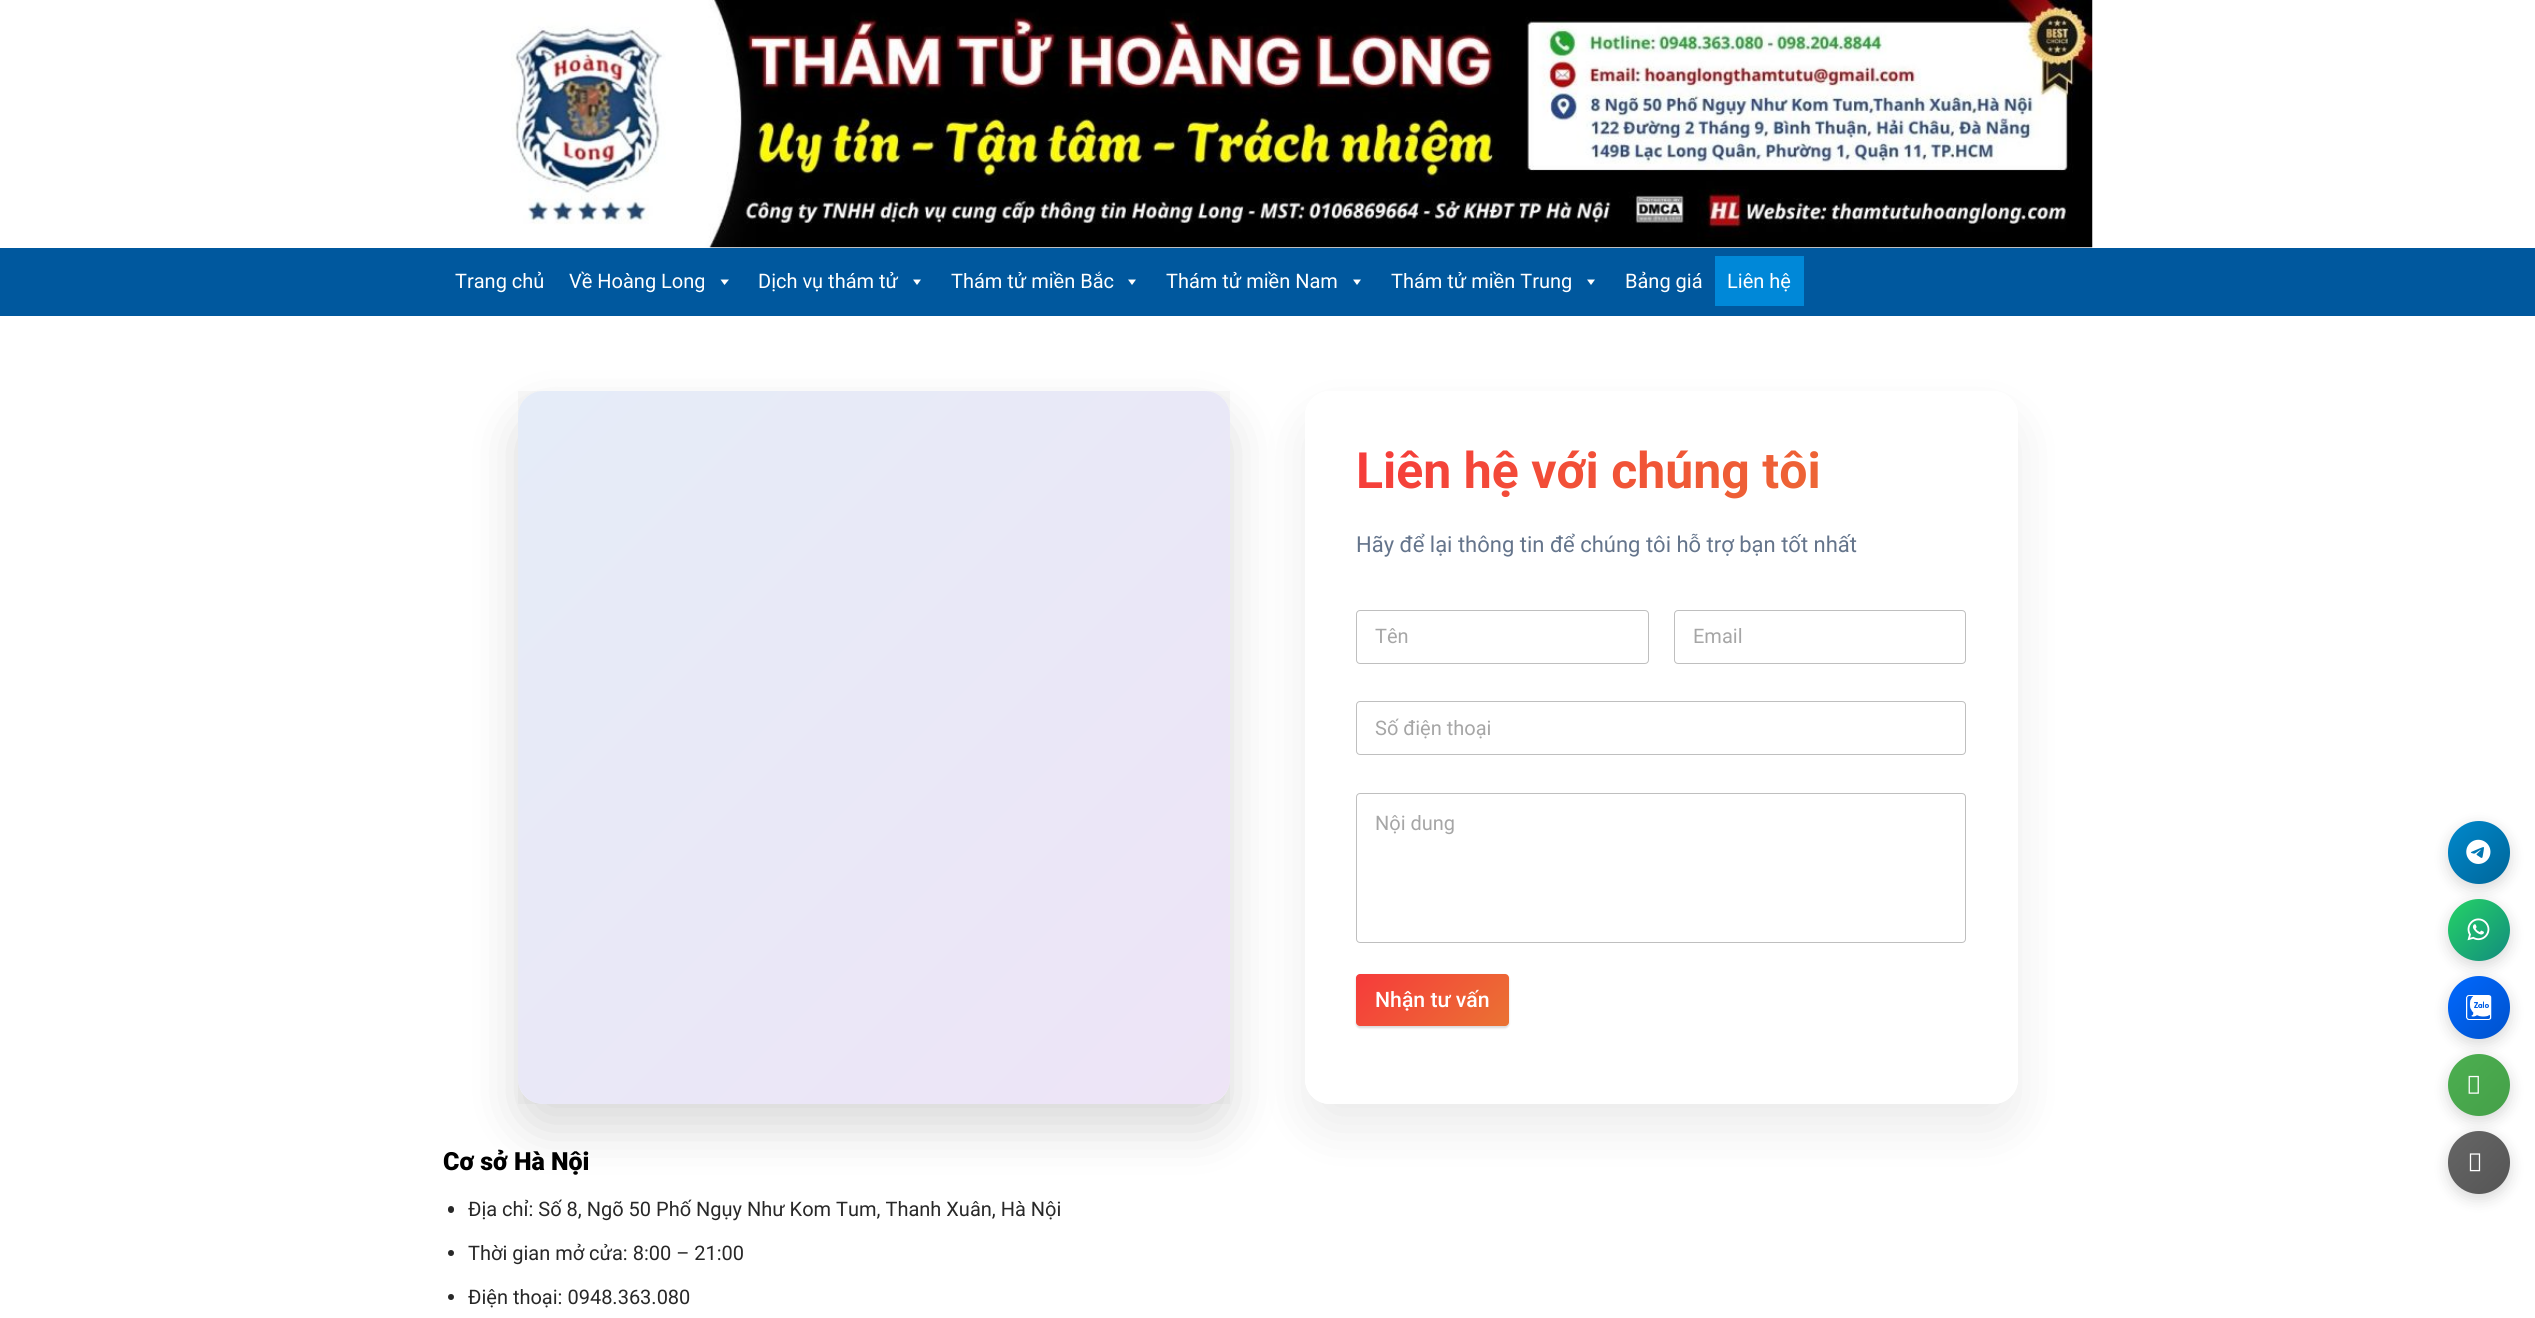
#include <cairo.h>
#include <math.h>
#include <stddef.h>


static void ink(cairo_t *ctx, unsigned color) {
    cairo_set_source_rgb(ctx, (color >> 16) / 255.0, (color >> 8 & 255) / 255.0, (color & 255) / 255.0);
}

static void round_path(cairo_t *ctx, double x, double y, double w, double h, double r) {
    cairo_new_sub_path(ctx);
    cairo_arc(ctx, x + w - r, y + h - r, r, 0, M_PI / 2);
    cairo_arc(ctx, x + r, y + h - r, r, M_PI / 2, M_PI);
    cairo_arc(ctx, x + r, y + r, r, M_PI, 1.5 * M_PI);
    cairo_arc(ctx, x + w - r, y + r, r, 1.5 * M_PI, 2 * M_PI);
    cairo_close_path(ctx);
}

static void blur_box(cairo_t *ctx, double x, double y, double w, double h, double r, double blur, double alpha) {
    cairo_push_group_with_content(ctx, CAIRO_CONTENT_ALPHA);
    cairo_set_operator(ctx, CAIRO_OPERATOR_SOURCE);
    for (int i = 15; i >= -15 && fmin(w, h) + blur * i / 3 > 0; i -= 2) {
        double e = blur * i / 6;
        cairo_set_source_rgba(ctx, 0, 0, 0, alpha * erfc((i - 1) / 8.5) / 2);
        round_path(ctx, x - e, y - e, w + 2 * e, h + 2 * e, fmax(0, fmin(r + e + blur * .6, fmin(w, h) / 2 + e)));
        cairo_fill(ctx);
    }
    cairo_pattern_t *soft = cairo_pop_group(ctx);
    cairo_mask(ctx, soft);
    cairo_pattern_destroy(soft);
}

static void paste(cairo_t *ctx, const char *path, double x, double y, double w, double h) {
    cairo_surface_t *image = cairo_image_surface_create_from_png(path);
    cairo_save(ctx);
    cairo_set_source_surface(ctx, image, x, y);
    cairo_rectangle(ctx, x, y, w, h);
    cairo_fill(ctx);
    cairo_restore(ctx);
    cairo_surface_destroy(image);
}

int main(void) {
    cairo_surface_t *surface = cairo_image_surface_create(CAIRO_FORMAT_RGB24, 2535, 1318);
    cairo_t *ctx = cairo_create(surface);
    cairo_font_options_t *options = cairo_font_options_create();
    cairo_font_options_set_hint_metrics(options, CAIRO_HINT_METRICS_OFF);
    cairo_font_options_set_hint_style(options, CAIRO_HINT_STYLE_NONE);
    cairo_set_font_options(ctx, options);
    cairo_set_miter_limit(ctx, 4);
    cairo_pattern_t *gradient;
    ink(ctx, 0xFFFFFF);
    cairo_paint(ctx);
    paste(ctx, "media/1.png", 511, 0, 1582, 248);
    ink(ctx, 0x00589E);
    cairo_rectangle(ctx, 0, 248, 2535, 68);
    cairo_fill(ctx);
    cairo_select_font_face(ctx, "Roboto", CAIRO_FONT_SLANT_NORMAL, CAIRO_FONT_WEIGHT_NORMAL);
    cairo_set_font_size(ctx, 20);
    ink(ctx, 0xFFFFFF);
    cairo_move_to(ctx, 455, 288);
    cairo_show_text(ctx, "Trang chủ");
    cairo_move_to(ctx, 569, 288);
    cairo_show_text(ctx, "Về Hoàng Long");
    cairo_new_path(ctx);
    cairo_move_to(ctx, 729, 279.5);
    cairo_line_to(ctx, 724.5, 285);
    cairo_line_to(ctx, 720.5, 279.5);
    cairo_close_path(ctx);
    cairo_fill(ctx);
    cairo_move_to(ctx, 758, 288);
    cairo_show_text(ctx, "Dịch vụ thám tử");
    cairo_new_path(ctx);
    cairo_move_to(ctx, 921, 279.5);
    cairo_line_to(ctx, 917, 285);
    cairo_line_to(ctx, 913, 279.5);
    cairo_close_path(ctx);
    cairo_fill(ctx);
    cairo_move_to(ctx, 951, 288);
    cairo_show_text(ctx, "Thám tử miền Bắc");
    cairo_new_path(ctx);
    cairo_move_to(ctx, 1136, 279.5);
    cairo_line_to(ctx, 1132, 285);
    cairo_line_to(ctx, 1128, 279.5);
    cairo_close_path(ctx);
    cairo_fill(ctx);
    cairo_move_to(ctx, 1166, 288);
    cairo_show_text(ctx, "Thám tử miền Nam");
    cairo_new_path(ctx);
    cairo_move_to(ctx, 1361, 279.5);
    cairo_line_to(ctx, 1357, 285);
    cairo_line_to(ctx, 1353, 279.5);
    cairo_close_path(ctx);
    cairo_fill(ctx);
    cairo_move_to(ctx, 1391, 288);
    cairo_show_text(ctx, "Thám tử miền Trung");
    cairo_new_path(ctx);
    cairo_move_to(ctx, 1595, 279.5);
    cairo_line_to(ctx, 1591, 285);
    cairo_line_to(ctx, 1587, 279.5);
    cairo_close_path(ctx);
    cairo_fill(ctx);
    cairo_move_to(ctx, 1625, 288);
    cairo_show_text(ctx, "Bảng giá");
    ink(ctx, 0x0088D8);
    cairo_rectangle(ctx, 1715, 256, 89, 50);
    cairo_fill(ctx);
    ink(ctx, 0xFFFFFF);
    cairo_move_to(ctx, 1727, 288);
    cairo_show_text(ctx, "Liên hệ");
    cairo_save(ctx);
    cairo_set_fill_rule(ctx, CAIRO_FILL_RULE_EVEN_ODD);
    cairo_new_path(ctx);
    cairo_move_to(ctx, 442, 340);
    cairo_line_to(ctx, 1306, 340);
    cairo_line_to(ctx, 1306, 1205);
    cairo_line_to(ctx, 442, 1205);
    cairo_close_path(ctx);
    cairo_move_to(ctx, 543, 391);
    cairo_line_to(ctx, 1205, 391);
    cairo_curve_to(ctx, 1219, 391, 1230, 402, 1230, 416);
    cairo_line_to(ctx, 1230, 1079);
    cairo_curve_to(ctx, 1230, 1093, 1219, 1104, 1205, 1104);
    cairo_line_to(ctx, 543, 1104);
    cairo_curve_to(ctx, 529, 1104, 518, 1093, 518, 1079);
    cairo_line_to(ctx, 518, 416);
    cairo_curve_to(ctx, 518, 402, 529, 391, 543, 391);
    cairo_close_path(ctx);
    cairo_clip(ctx);
    ink(ctx, 0x000000);
    blur_box(ctx, 518, 416, 712, 713, 25, 25, 0.15);
    cairo_restore(ctx);
    cairo_set_source_rgba(ctx, 0, 0, 0, 0.03);
    cairo_rectangle(ctx, 518, 391, 712, 713);
    cairo_fill(ctx);
    cairo_save(ctx);
    cairo_set_fill_rule(ctx, CAIRO_FILL_RULE_EVEN_ODD);
    cairo_new_path(ctx);
    cairo_move_to(ctx, 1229, 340);
    cairo_line_to(ctx, 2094, 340);
    cairo_line_to(ctx, 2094, 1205);
    cairo_line_to(ctx, 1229, 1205);
    cairo_close_path(ctx);
    cairo_move_to(ctx, 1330, 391);
    cairo_line_to(ctx, 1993, 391);
    cairo_curve_to(ctx, 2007, 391, 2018, 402, 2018, 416);
    cairo_line_to(ctx, 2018, 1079);
    cairo_curve_to(ctx, 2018, 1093, 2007, 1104, 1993, 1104);
    cairo_line_to(ctx, 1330, 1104);
    cairo_curve_to(ctx, 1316, 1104, 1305, 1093, 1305, 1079);
    cairo_line_to(ctx, 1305, 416);
    cairo_curve_to(ctx, 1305, 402, 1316, 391, 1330, 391);
    cairo_close_path(ctx);
    cairo_clip(ctx);
    ink(ctx, 0x000000);
    blur_box(ctx, 1305, 416, 713, 713, 25, 25, 0.08);
    cairo_restore(ctx);
    gradient = cairo_pattern_create_linear(518, 391, 1230, 1104);
    cairo_pattern_add_color_stop_rgba(gradient, 0, 0.231, 0.51, 0.965, 0.1);
    cairo_pattern_add_color_stop_rgba(gradient, 1, 0.576, 0.2, 0.918, 0.1);
    cairo_set_source(ctx, gradient);
    cairo_pattern_destroy(gradient);
    round_path(ctx, 518, 391, 712, 713, 25);
    cairo_fill(ctx);
    cairo_set_source_rgba(ctx, 1, 1, 1, 0.9);
    round_path(ctx, 1305, 391, 713, 713, 25);
    cairo_fill(ctx);
    cairo_select_font_face(ctx, "Roboto", CAIRO_FONT_SLANT_NORMAL, CAIRO_FONT_WEIGHT_BOLD);
    cairo_set_font_size(ctx, 50);
    gradient = cairo_pattern_create_linear(1494, 305, 1829, 640);
    cairo_pattern_add_color_stop_rgba(gradient, 0, 0.965, 0.231, 0.231, 1);
    cairo_pattern_add_color_stop_rgba(gradient, 1, 0.918, 0.451, 0.2, 1);
    cairo_set_source(ctx, gradient);
    cairo_pattern_destroy(gradient);
    cairo_move_to(ctx, 1356, 488);
    cairo_show_text(ctx, "Liên hệ với chúng tôi");
    cairo_select_font_face(ctx, "Roboto", CAIRO_FONT_SLANT_NORMAL, CAIRO_FONT_WEIGHT_NORMAL);
    cairo_set_font_size(ctx, 22);
    ink(ctx, 0x64748B);
    cairo_move_to(ctx, 1356, 552);
    cairo_show_text(ctx, "Hãy để lại thông tin để chúng tôi hỗ trợ bạn tốt nhất");
    round_path(ctx, 1356.5, 610.5, 292, 53, 3.5);
    ink(ctx, 0xBFBFBF);
    cairo_set_line_width(ctx, 1);
    cairo_stroke(ctx);
    cairo_set_font_size(ctx, 20);
    ink(ctx, 0xA6A6A6);
    cairo_move_to(ctx, 1375, 643);
    cairo_show_text(ctx, "Tên");
    round_path(ctx, 1674.5, 610.5, 291, 53, 3.5);
    ink(ctx, 0xBFBFBF);
    cairo_stroke(ctx);
    ink(ctx, 0xA6A6A6);
    cairo_move_to(ctx, 1693, 643);
    cairo_show_text(ctx, "Email");
    round_path(ctx, 1356.5, 701.5, 609, 53, 3.5);
    ink(ctx, 0xBFBFBF);
    cairo_stroke(ctx);
    ink(ctx, 0xA6A6A6);
    cairo_move_to(ctx, 1375, 735);
    cairo_show_text(ctx, "Số điện thoại");
    round_path(ctx, 1356.5, 793.5, 609, 149, 3.5);
    ink(ctx, 0xBFBFBF);
    cairo_stroke(ctx);
    ink(ctx, 0xA6A6A6);
    cairo_move_to(ctx, 1375, 830);
    cairo_show_text(ctx, "Nội dung");
    ink(ctx, 0x000000);
    blur_box(ctx, 1356, 975, 153, 53, 4, 1, 0.15);
    gradient = cairo_pattern_create_linear(1381, 949, 1484, 1051);
    cairo_pattern_add_color_stop_rgba(gradient, 0, 0.965, 0.231, 0.231, 1);
    cairo_pattern_add_color_stop_rgba(gradient, 1, 0.918, 0.451, 0.2, 1);
    cairo_set_source(ctx, gradient);
    cairo_pattern_destroy(gradient);
    round_path(ctx, 1356, 974, 153, 52, 4);
    cairo_fill(ctx);
    cairo_select_font_face(ctx, "Roboto Medium", CAIRO_FONT_SLANT_NORMAL, CAIRO_FONT_WEIGHT_NORMAL);
    cairo_set_font_size(ctx, 21.25);
    ink(ctx, 0xFFFFFF);
    cairo_move_to(ctx, 1375, 1007);
    cairo_show_text(ctx, "Nhận tư vấn");
    cairo_select_font_face(ctx, "Roboto Black", CAIRO_FONT_SLANT_NORMAL, CAIRO_FONT_WEIGHT_NORMAL);
    cairo_set_font_size(ctx, 25);
    ink(ctx, 0x000000);
    cairo_move_to(ctx, 443, 1170);
    cairo_show_text(ctx, "Cơ sở Hà Nội");
    ink(ctx, 0x282828);
    round_path(ctx, 448, 1206, 6, 7, 3);
    cairo_fill(ctx);
    cairo_select_font_face(ctx, "Roboto", CAIRO_FONT_SLANT_NORMAL, CAIRO_FONT_WEIGHT_NORMAL);
    cairo_set_font_size(ctx, 20);
    cairo_move_to(ctx, 468, 1216);
    cairo_show_text(ctx, "Địa chỉ: Số 8, Ngõ 50 Phố Ngụy Như Kom Tum, Thanh Xuân, Hà Nội");
    cairo_new_path(ctx);
    cairo_arc(ctx, 451, 1253, 3, 0, 2 * M_PI);
    cairo_fill(ctx);
    cairo_move_to(ctx, 468, 1260);
    cairo_show_text(ctx, "Thời gian mở cửa: 8:00 – 21:00");
    cairo_new_path(ctx);
    cairo_arc(ctx, 451, 1297, 3, 0, 2 * M_PI);
    cairo_fill(ctx);
    cairo_move_to(ctx, 468, 1304);
    cairo_show_text(ctx, "Điện thoại: 0948.363.080");
    ink(ctx, 0x000000);
    blur_box(ctx, 2448, 826, 62, 63, 31, 7.5, 0.15);
    gradient = cairo_pattern_create_linear(2448, 821, 2510, 884);
    cairo_pattern_add_color_stop_rgba(gradient, 0, 0, 0.533, 0.8, 1);
    cairo_pattern_add_color_stop_rgba(gradient, 1, 0, 0.4, 0.6, 1);
    cairo_set_source(ctx, gradient);
    cairo_pattern_destroy(gradient);
    round_path(ctx, 2448, 821, 62, 63, 31);
    cairo_fill(ctx);
    paste(ctx, "media/2.png", 2466, 839, 25, 25);
    ink(ctx, 0x000000);
    blur_box(ctx, 2448, 904, 62, 62, 31, 7.5, 0.15);
    gradient = cairo_pattern_create_linear(2448, 899, 2510, 961);
    cairo_pattern_add_color_stop_rgba(gradient, 0, 0.145, 0.827, 0.4, 1);
    cairo_pattern_add_color_stop_rgba(gradient, 1, 0.071, 0.549, 0.494, 1);
    cairo_set_source(ctx, gradient);
    cairo_pattern_destroy(gradient);
    cairo_arc(ctx, 2479, 930, 31, 0, 2 * M_PI);
    cairo_fill(ctx);
    paste(ctx, "media/3.png", 2467, 918, 23, 23);
    ink(ctx, 0x000000);
    blur_box(ctx, 2448, 981, 62, 63, 31, 7.5, 0.15);
    gradient = cairo_pattern_create_linear(2448, 976, 2510, 1039);
    cairo_pattern_add_color_stop_rgba(gradient, 0, 0, 0.408, 1, 1);
    cairo_pattern_add_color_stop_rgba(gradient, 1, 0, 0.322, 0.8, 1);
    cairo_set_source(ctx, gradient);
    cairo_pattern_destroy(gradient);
    round_path(ctx, 2448, 976, 62, 63, 31);
    cairo_fill(ctx);
    paste(ctx, "media/4.png", 2466, 995, 26, 25);
    ink(ctx, 0x000000);
    blur_box(ctx, 2448, 1059, 62, 62, 31, 7.5, 0.15);
    gradient = cairo_pattern_create_linear(2448, 1054, 2510, 1116);
    cairo_pattern_add_color_stop_rgba(gradient, 0, 0.298, 0.686, 0.314, 1);
    cairo_pattern_add_color_stop_rgba(gradient, 1, 0.271, 0.627, 0.286, 1);
    cairo_set_source(ctx, gradient);
    cairo_pattern_destroy(gradient);
    cairo_arc(ctx, 2479, 1085, 31, 0, 2 * M_PI);
    cairo_fill(ctx);
    paste(ctx, "media/5.png", 2468, 1075, 11, 19);
    ink(ctx, 0x000000);
    blur_box(ctx, 2448, 1136, 62, 63, 31, 7.5, 0.15);
    gradient = cairo_pattern_create_linear(2448, 1131, 2510, 1194);
    cairo_pattern_add_color_stop_rgba(gradient, 0, 0.4, 0.4, 0.4, 1);
    cairo_pattern_add_color_stop_rgba(gradient, 1, 0.333, 0.333, 0.333, 1);
    cairo_set_source(ctx, gradient);
    cairo_pattern_destroy(gradient);
    round_path(ctx, 2448, 1131, 62, 63, 31);
    cairo_fill(ctx);
    paste(ctx, "media/6.png", 2469, 1153, 12, 19);
    cairo_surface_write_to_png(surface, "image.png");
    cairo_font_options_destroy(options);
    cairo_destroy(ctx);
    cairo_surface_destroy(surface);
    return 0;
}
